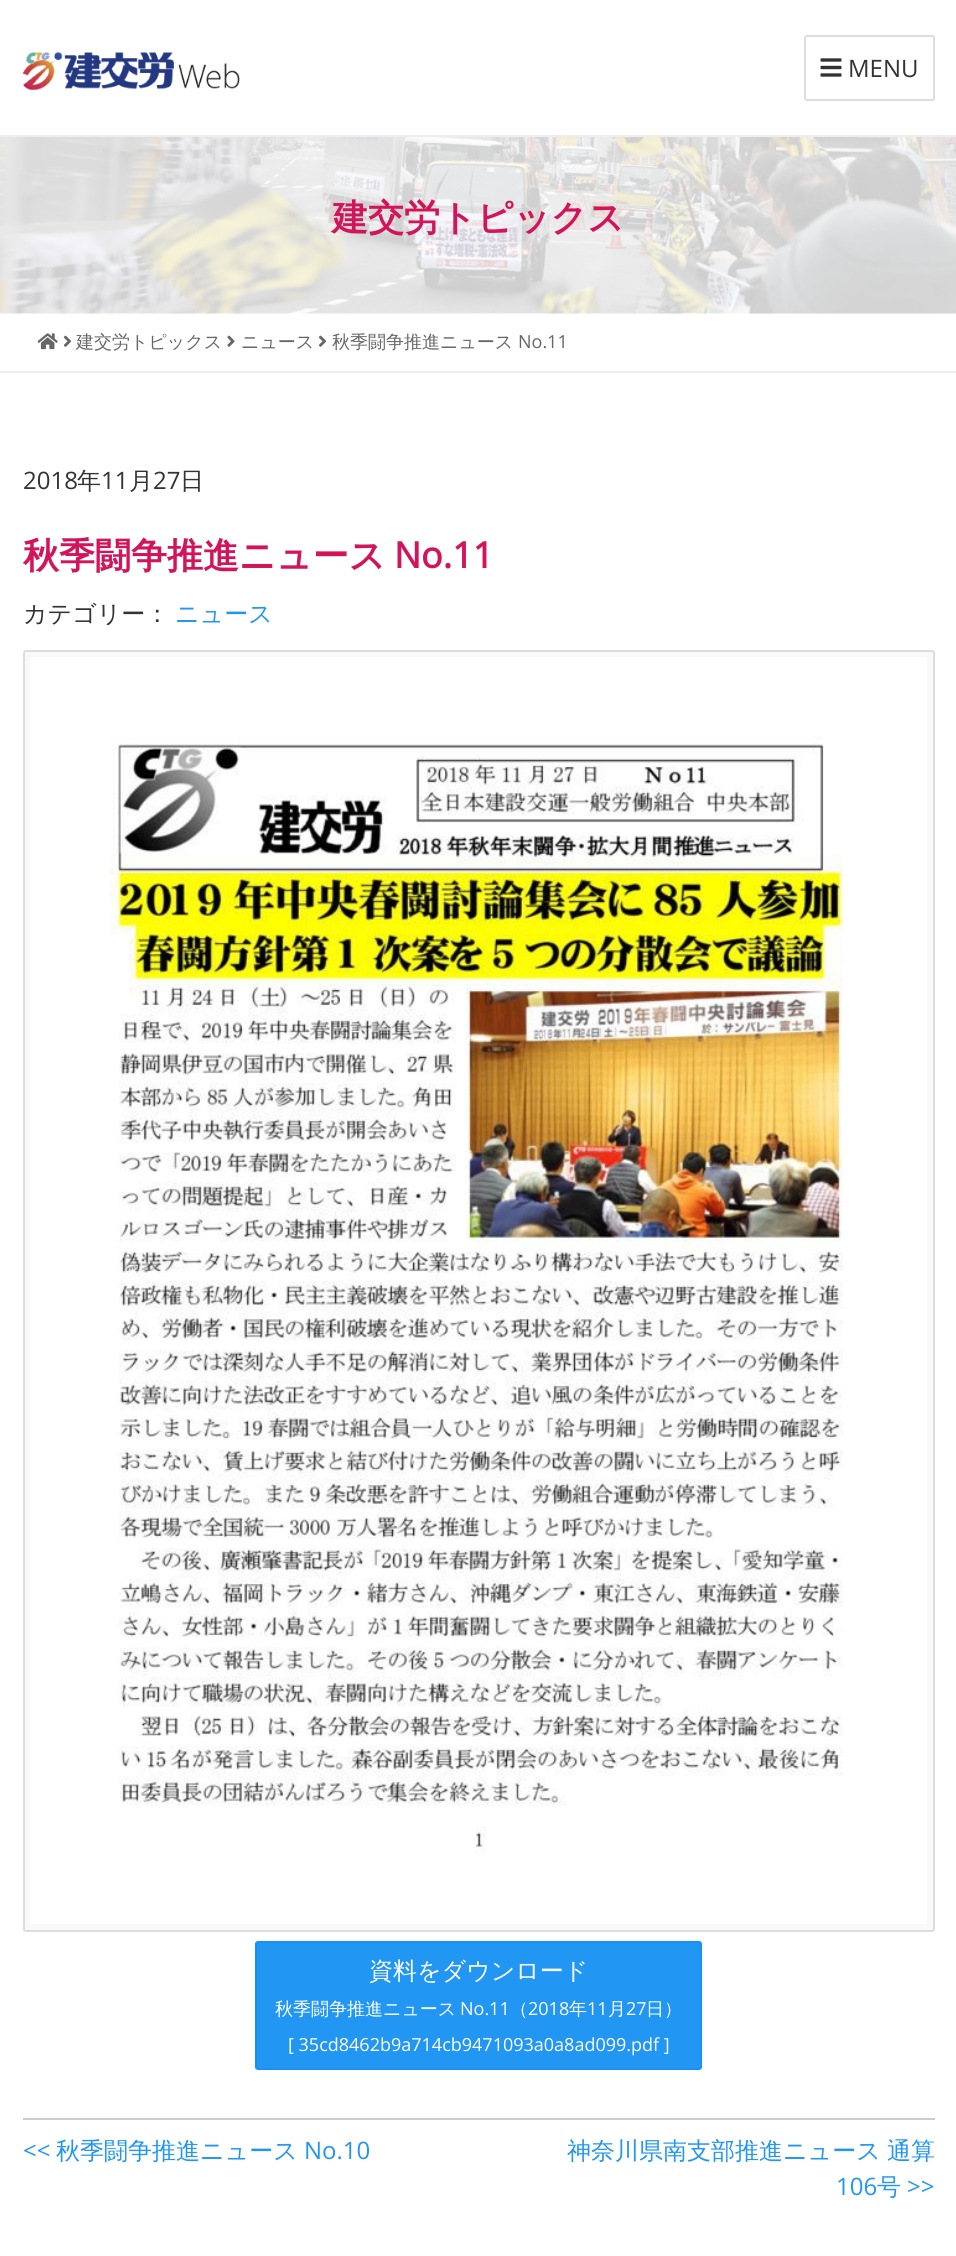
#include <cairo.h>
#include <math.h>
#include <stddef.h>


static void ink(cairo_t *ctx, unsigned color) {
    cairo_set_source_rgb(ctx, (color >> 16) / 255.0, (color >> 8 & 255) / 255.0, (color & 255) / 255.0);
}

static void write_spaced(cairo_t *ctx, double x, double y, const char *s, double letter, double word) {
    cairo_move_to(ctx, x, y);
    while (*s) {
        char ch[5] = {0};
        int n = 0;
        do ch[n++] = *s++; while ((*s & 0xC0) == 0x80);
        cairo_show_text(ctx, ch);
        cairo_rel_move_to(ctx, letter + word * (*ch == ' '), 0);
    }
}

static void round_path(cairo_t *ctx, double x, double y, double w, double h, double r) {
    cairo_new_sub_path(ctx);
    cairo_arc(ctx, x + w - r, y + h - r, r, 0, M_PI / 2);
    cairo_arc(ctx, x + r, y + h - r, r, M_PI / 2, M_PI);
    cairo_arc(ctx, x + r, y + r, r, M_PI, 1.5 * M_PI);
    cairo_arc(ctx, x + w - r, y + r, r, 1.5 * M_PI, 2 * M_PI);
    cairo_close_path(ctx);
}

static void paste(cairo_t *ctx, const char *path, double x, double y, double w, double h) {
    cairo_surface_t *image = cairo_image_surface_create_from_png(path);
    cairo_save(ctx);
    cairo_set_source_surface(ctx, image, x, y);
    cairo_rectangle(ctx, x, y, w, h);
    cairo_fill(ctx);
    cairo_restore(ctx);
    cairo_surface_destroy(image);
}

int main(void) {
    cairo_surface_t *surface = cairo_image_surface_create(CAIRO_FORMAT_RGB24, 956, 2256);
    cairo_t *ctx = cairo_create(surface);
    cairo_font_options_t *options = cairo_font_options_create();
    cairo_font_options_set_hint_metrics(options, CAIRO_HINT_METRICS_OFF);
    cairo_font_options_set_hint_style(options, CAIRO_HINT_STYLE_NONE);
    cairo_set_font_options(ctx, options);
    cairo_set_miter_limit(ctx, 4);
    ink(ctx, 0xFFFFFF);
    cairo_paint(ctx);
    ink(ctx, 0xEEEEEE);
    cairo_rectangle(ctx, 0, 135, 956, 2);
    cairo_fill(ctx);
    paste(ctx, "media/1.png", 22, 52, 218, 38);
    round_path(ctx, 805, 36, 129, 64, 2);
    ink(ctx, 0xDDDDDD);
    cairo_stroke(ctx);
    paste(ctx, "media/2.png", 820, 58, 22, 19);
    cairo_select_font_face(ctx, "Open Sans", CAIRO_FONT_SLANT_NORMAL, CAIRO_FONT_WEIGHT_NORMAL);
    cairo_set_font_size(ctx, 24);
    ink(ctx, 0x333333);
    cairo_move_to(ctx, 848, 77);
    cairo_show_text(ctx, "MENU");
    paste(ctx, "media/3.png", 0, 137, 956, 177);
    cairo_select_font_face(ctx, "WenQuanYi Zen Hei", CAIRO_FONT_SLANT_NORMAL, CAIRO_FONT_WEIGHT_BOLD);
    cairo_set_font_size(ctx, 36);
    ink(ctx, 0xD3145A);
    cairo_move_to(ctx, 332, 230);
    cairo_show_text(ctx, "建交労トピックス");
    ink(ctx, 0xEEEEEE);
    cairo_rectangle(ctx, 0, 371, 956, 2);
    cairo_fill(ctx);
    paste(ctx, "media/4.png", 37, 333, 21, 17);
    paste(ctx, "media/5.png", 63, 335, 9, 12);
    cairo_select_font_face(ctx, "WenQuanYi Zen Hei Medium", CAIRO_FONT_SLANT_NORMAL, CAIRO_FONT_WEIGHT_NORMAL);
    cairo_set_font_size(ctx, 18);
    ink(ctx, 0x666666);
    cairo_move_to(ctx, 76, 348);
    cairo_show_text(ctx, "建交労トピックス");
    paste(ctx, "media/6.png", 227, 335, 8, 12);
    cairo_move_to(ctx, 241, 348);
    cairo_show_text(ctx, "ニュース");
    paste(ctx, "media/5.png", 318, 335, 9, 12);
    cairo_move_to(ctx, 332, 348);
    cairo_show_text(ctx, "秋季闘争推進ニュース");
    cairo_select_font_face(ctx, "Open Sans", CAIRO_FONT_SLANT_NORMAL, CAIRO_FONT_WEIGHT_NORMAL);
    cairo_move_to(ctx, 518, 348);
    cairo_show_text(ctx, "No.11");
    cairo_set_font_size(ctx, 24);
    ink(ctx, 0x333333);
    cairo_move_to(ctx, 23, 489);
    cairo_show_text(ctx, "2018");
    cairo_select_font_face(ctx, "WenQuanYi Zen Hei Medium", CAIRO_FONT_SLANT_NORMAL, CAIRO_FONT_WEIGHT_NORMAL);
    cairo_move_to(ctx, 77, 489);
    cairo_show_text(ctx, "年");
    cairo_select_font_face(ctx, "Open Sans", CAIRO_FONT_SLANT_NORMAL, CAIRO_FONT_WEIGHT_NORMAL);
    cairo_move_to(ctx, 101, 489);
    cairo_show_text(ctx, "11");
    cairo_select_font_face(ctx, "WenQuanYi Zen Hei Medium", CAIRO_FONT_SLANT_NORMAL, CAIRO_FONT_WEIGHT_NORMAL);
    cairo_move_to(ctx, 129, 489);
    cairo_show_text(ctx, "月");
    cairo_select_font_face(ctx, "Open Sans", CAIRO_FONT_SLANT_NORMAL, CAIRO_FONT_WEIGHT_NORMAL);
    cairo_move_to(ctx, 153, 489);
    cairo_show_text(ctx, "27");
    cairo_select_font_face(ctx, "WenQuanYi Zen Hei Medium", CAIRO_FONT_SLANT_NORMAL, CAIRO_FONT_WEIGHT_NORMAL);
    cairo_move_to(ctx, 180, 489);
    cairo_show_text(ctx, "日");
    cairo_select_font_face(ctx, "WenQuanYi Zen Hei", CAIRO_FONT_SLANT_NORMAL, CAIRO_FONT_WEIGHT_BOLD);
    cairo_set_font_size(ctx, 36);
    ink(ctx, 0xD3145A);
    cairo_move_to(ctx, 23, 568);
    cairo_show_text(ctx, "秋季闘争推進ニュース");
    cairo_select_font_face(ctx, "Open Sans", CAIRO_FONT_SLANT_NORMAL, CAIRO_FONT_WEIGHT_BOLD);
    cairo_move_to(ctx, 394, 568);
    cairo_show_text(ctx, "No.11");
    cairo_select_font_face(ctx, "WenQuanYi Zen Hei Medium", CAIRO_FONT_SLANT_NORMAL, CAIRO_FONT_WEIGHT_NORMAL);
    cairo_set_font_size(ctx, 24);
    ink(ctx, 0x333333);
    cairo_move_to(ctx, 23, 622);
    cairo_show_text(ctx, "カテゴリー：");
    ink(ctx, 0x2196F3);
    cairo_move_to(ctx, 175, 622);
    cairo_show_text(ctx, "ニュース");
    ink(ctx, 0xF9F9F9);
    round_path(ctx, 24, 651, 910, 1280, 2);
    cairo_fill_preserve(ctx);
    ink(ctx, 0xDDDDDD);
    cairo_stroke(ctx);
    paste(ctx, "media/7.png", 30, 657, 897, 1267);
    ink(ctx, 0x2196F3);
    round_path(ctx, 256, 1942, 445, 127, 2);
    cairo_fill_preserve(ctx);
    ink(ctx, 0x1791F2);
    cairo_stroke(ctx);
    ink(ctx, 0xFFFFFF);
    cairo_move_to(ctx, 369, 1979);
    cairo_show_text(ctx, "資料をダウンロード");
    cairo_set_font_size(ctx, 18);
    cairo_move_to(ctx, 275, 2015);
    cairo_show_text(ctx, "秋季闘争推進ニュース");
    cairo_select_font_face(ctx, "Open Sans", CAIRO_FONT_SLANT_NORMAL, CAIRO_FONT_WEIGHT_NORMAL);
    cairo_move_to(ctx, 460, 2015);
    cairo_show_text(ctx, "No.11");
    cairo_select_font_face(ctx, "WenQuanYi Zen Hei Medium", CAIRO_FONT_SLANT_NORMAL, CAIRO_FONT_WEIGHT_NORMAL);
    cairo_move_to(ctx, 510, 2015);
    cairo_show_text(ctx, "（");
    cairo_select_font_face(ctx, "Open Sans", CAIRO_FONT_SLANT_NORMAL, CAIRO_FONT_WEIGHT_NORMAL);
    cairo_move_to(ctx, 528, 2015);
    cairo_show_text(ctx, "2018");
    cairo_select_font_face(ctx, "WenQuanYi Zen Hei Medium", CAIRO_FONT_SLANT_NORMAL, CAIRO_FONT_WEIGHT_NORMAL);
    cairo_move_to(ctx, 569, 2015);
    cairo_show_text(ctx, "年");
    cairo_select_font_face(ctx, "Open Sans", CAIRO_FONT_SLANT_NORMAL, CAIRO_FONT_WEIGHT_NORMAL);
    cairo_move_to(ctx, 587, 2015);
    cairo_show_text(ctx, "11");
    cairo_select_font_face(ctx, "WenQuanYi Zen Hei Medium", CAIRO_FONT_SLANT_NORMAL, CAIRO_FONT_WEIGHT_NORMAL);
    cairo_move_to(ctx, 608, 2015);
    cairo_show_text(ctx, "月");
    cairo_select_font_face(ctx, "Open Sans", CAIRO_FONT_SLANT_NORMAL, CAIRO_FONT_WEIGHT_NORMAL);
    cairo_move_to(ctx, 626, 2015);
    cairo_show_text(ctx, "27");
    cairo_select_font_face(ctx, "WenQuanYi Zen Hei Medium", CAIRO_FONT_SLANT_NORMAL, CAIRO_FONT_WEIGHT_NORMAL);
    cairo_move_to(ctx, 646, 2015);
    cairo_show_text(ctx, "日）");
    cairo_select_font_face(ctx, "Open Sans", CAIRO_FONT_SLANT_NORMAL, CAIRO_FONT_WEIGHT_NORMAL);
    cairo_move_to(ctx, 288, 2051);
    cairo_show_text(ctx, "[ 35cd8462b9a714cb9471093a0a8ad099.pdf ]");
    ink(ctx, 0xCCCCCC);
    cairo_rectangle(ctx, 23, 2118, 912, 2);
    cairo_fill(ctx);
    cairo_set_font_size(ctx, 24);
    ink(ctx, 0x2196F3);
    cairo_move_to(ctx, 23, 2159);
    cairo_show_text(ctx, "<<");
    cairo_select_font_face(ctx, "WenQuanYi Zen Hei Medium", CAIRO_FONT_SLANT_NORMAL, CAIRO_FONT_WEIGHT_NORMAL);
    cairo_move_to(ctx, 56, 2159);
    cairo_show_text(ctx, "秋季闘争推進ニュース");
    cairo_select_font_face(ctx, "Open Sans", CAIRO_FONT_SLANT_NORMAL, CAIRO_FONT_WEIGHT_NORMAL);
    cairo_move_to(ctx, 304, 2159);
    cairo_show_text(ctx, "No.10");
    cairo_select_font_face(ctx, "WenQuanYi Zen Hei Medium", CAIRO_FONT_SLANT_NORMAL, CAIRO_FONT_WEIGHT_NORMAL);
    write_spaced(ctx, 567, 2159, "神奈川県南支部推進ニュース 通算", 0, -1);
    cairo_select_font_face(ctx, "Open Sans", CAIRO_FONT_SLANT_NORMAL, CAIRO_FONT_WEIGHT_NORMAL);
    cairo_move_to(ctx, 836, 2195);
    cairo_show_text(ctx, "106");
    cairo_select_font_face(ctx, "WenQuanYi Zen Hei Medium", CAIRO_FONT_SLANT_NORMAL, CAIRO_FONT_WEIGHT_NORMAL);
    cairo_move_to(ctx, 877, 2195);
    cairo_show_text(ctx, "号");
    cairo_select_font_face(ctx, "Open Sans", CAIRO_FONT_SLANT_NORMAL, CAIRO_FONT_WEIGHT_NORMAL);
    cairo_move_to(ctx, 907, 2195);
    cairo_show_text(ctx, ">>");
    cairo_surface_write_to_png(surface, "image.png");
    cairo_font_options_destroy(options);
    cairo_destroy(ctx);
    cairo_surface_destroy(surface);
    return 0;
}
